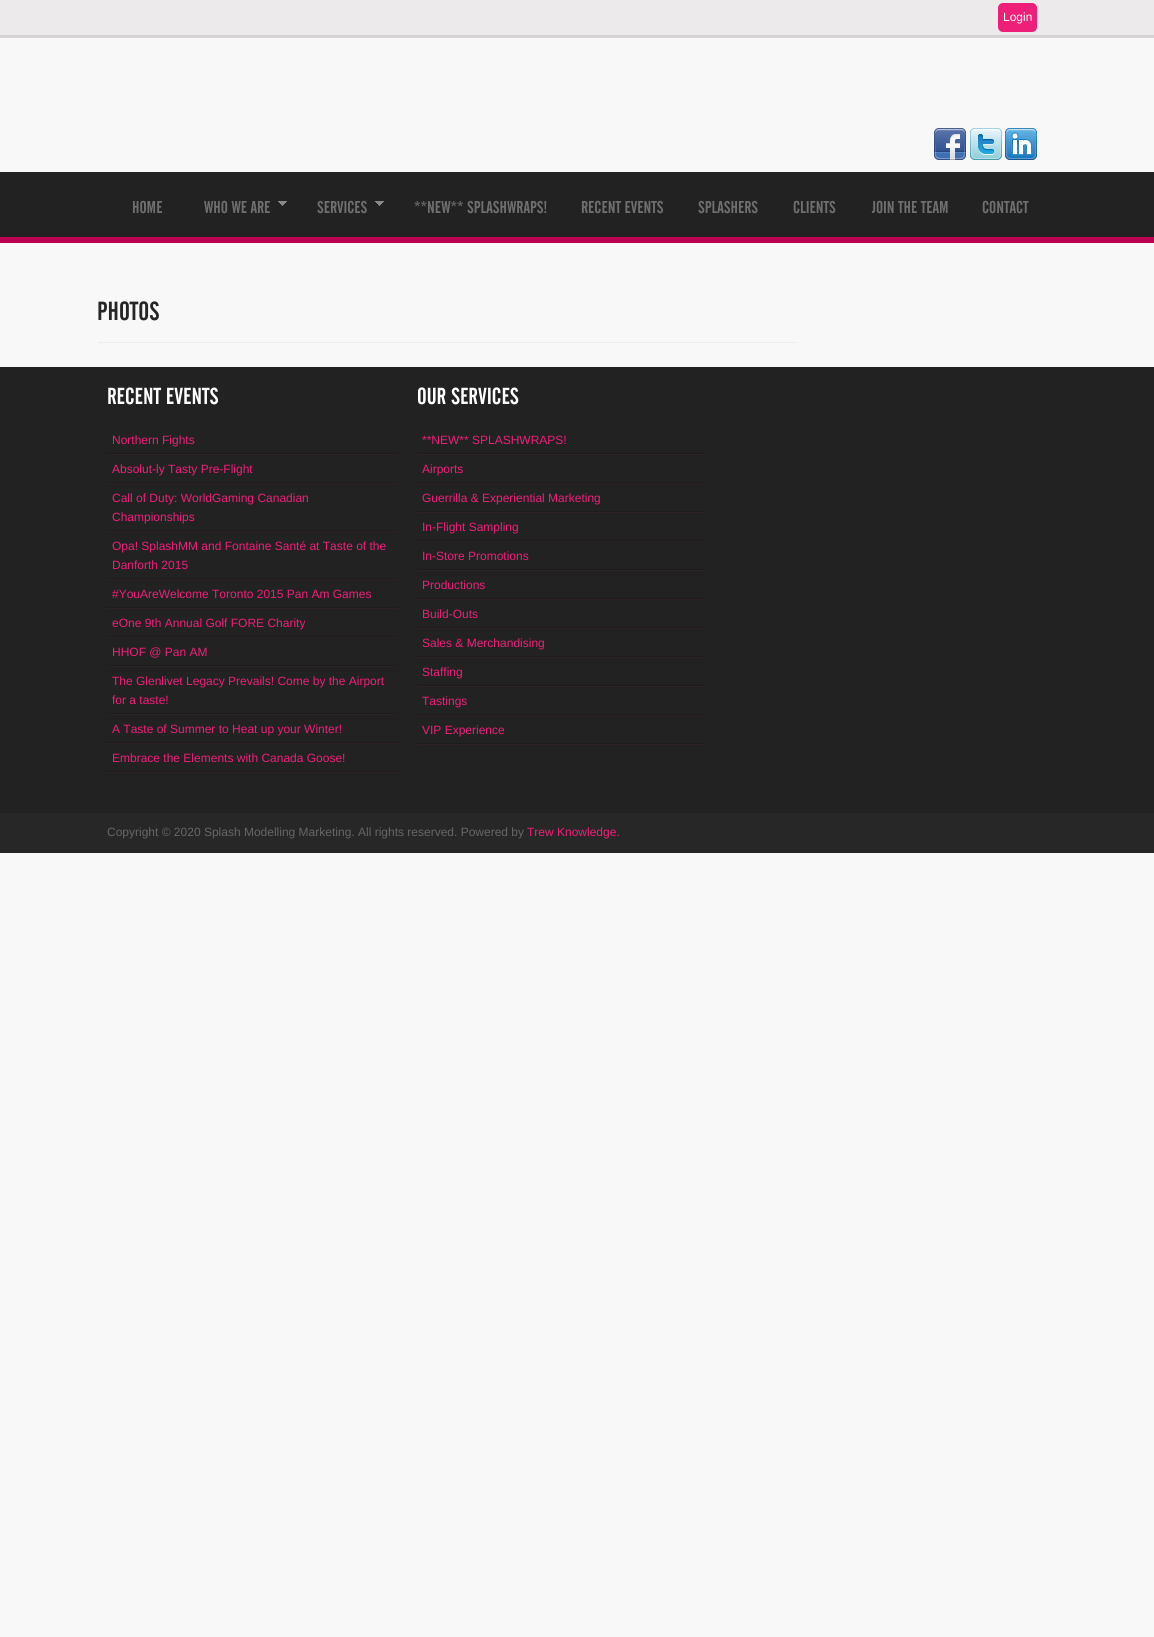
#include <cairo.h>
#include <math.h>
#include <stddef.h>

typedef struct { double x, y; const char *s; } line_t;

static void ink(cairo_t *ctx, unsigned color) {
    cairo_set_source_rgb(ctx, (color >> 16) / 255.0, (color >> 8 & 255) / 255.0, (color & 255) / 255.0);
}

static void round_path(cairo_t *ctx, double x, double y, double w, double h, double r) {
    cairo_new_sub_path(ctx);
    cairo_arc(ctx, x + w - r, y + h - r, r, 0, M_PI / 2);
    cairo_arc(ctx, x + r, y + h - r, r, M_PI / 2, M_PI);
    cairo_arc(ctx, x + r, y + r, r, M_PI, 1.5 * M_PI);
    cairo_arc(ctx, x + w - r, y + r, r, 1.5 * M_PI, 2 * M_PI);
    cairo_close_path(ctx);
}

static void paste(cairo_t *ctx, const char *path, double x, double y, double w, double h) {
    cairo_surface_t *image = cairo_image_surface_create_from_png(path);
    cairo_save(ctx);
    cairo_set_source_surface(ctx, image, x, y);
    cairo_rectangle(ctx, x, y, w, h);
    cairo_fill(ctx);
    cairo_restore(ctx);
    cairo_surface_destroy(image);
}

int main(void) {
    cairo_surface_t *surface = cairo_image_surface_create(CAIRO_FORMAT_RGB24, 1154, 1637);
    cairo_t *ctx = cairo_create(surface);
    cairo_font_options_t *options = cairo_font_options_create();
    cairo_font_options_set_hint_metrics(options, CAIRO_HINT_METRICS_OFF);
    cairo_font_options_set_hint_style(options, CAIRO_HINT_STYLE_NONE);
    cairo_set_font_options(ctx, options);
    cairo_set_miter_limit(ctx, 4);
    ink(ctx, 0xF8F8F8);
    cairo_paint(ctx);
    ink(ctx, 0xECEAEA);
    cairo_rectangle(ctx, 0, 0, 1154, 35);
    cairo_fill(ctx);
    ink(ctx, 0xD5D3D3);
    cairo_rectangle(ctx, 0, 35, 1154, 3);
    cairo_fill(ctx);
    ink(ctx, 0xEE1F79);
    round_path(ctx, 998, 3, 39, 29, 5);
    cairo_fill(ctx);
    cairo_select_font_face(ctx, "Liberation Sans", CAIRO_FONT_SLANT_NORMAL, CAIRO_FONT_WEIGHT_NORMAL);
    cairo_set_font_size(ctx, 12);
    ink(ctx, 0xFFFFFF);
    cairo_move_to(ctx, 1003, 21);
    cairo_show_text(ctx, "Login");
    paste(ctx, "media/1.png", 934, 128, 32, 32);
    paste(ctx, "media/2.png", 970, 128, 32, 32);
    paste(ctx, "media/3.png", 1005, 128, 32, 32);
    ink(ctx, 0x222222);
    cairo_rectangle(ctx, 0, 172, 1154, 65);
    cairo_fill(ctx);
    ink(ctx, 0xBC0052);
    cairo_rectangle(ctx, 0, 237, 1154, 6);
    cairo_fill(ctx);
    cairo_select_font_face(ctx, "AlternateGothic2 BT", CAIRO_FONT_SLANT_NORMAL, CAIRO_FONT_WEIGHT_NORMAL);
    cairo_set_font_size(ctx, 17);
    ink(ctx, 0x6F6F6F);
    cairo_move_to(ctx, 132, 213);
    cairo_show_text(ctx, "HOME");
    cairo_move_to(ctx, 204, 213);
    cairo_show_text(ctx, "WHO WE ARE");
    paste(ctx, "media/4.png", 278, 201, 9, 5);
    cairo_move_to(ctx, 317, 213);
    cairo_show_text(ctx, "SERVICES");
    paste(ctx, "media/4.png", 375, 201, 9, 5);
    {
        static const line_t items[] = {
            {414, 213, "**NEW** SPLASHWRAPS!"},
            {581, 213, "RECENT EVENTS"},
            {698, 213, "SPLASHERS"},
            {793, 213, "CLIENTS"},
            {872, 213, "JOIN THE TEAM"},
            {982, 213, "CONTACT"},
        };
        for (size_t i = 0; i < sizeof items / sizeof *items; i++) {
            cairo_move_to(ctx, items[i].x, items[i].y);
            cairo_show_text(ctx, items[i].s);
        }
    }
    cairo_set_font_size(ctx, 26);
    ink(ctx, 0x262626);
    cairo_move_to(ctx, 97, 320);
    cairo_show_text(ctx, "PHOTOS");
    ink(ctx, 0xEDEDED);
    cairo_rectangle(ctx, 98, 342, 699, 1);
    cairo_fill(ctx);
    ink(ctx, 0x222222);
    cairo_rectangle(ctx, 0, 367, 1154, 446);
    cairo_fill(ctx);
    cairo_set_font_size(ctx, 23);
    ink(ctx, 0xFFFFFF);
    cairo_move_to(ctx, 107, 404);
    cairo_show_text(ctx, "RECENT EVENTS");
    paste(ctx, "media/5.png", 107, 453, 290, 2);
    cairo_select_font_face(ctx, "Liberation Sans", CAIRO_FONT_SLANT_NORMAL, CAIRO_FONT_WEIGHT_NORMAL);
    cairo_set_font_size(ctx, 12);
    ink(ctx, 0xEE1F79);
    cairo_move_to(ctx, 112, 444);
    cairo_show_text(ctx, "Northern Fights");
    paste(ctx, "media/5.png", 107, 482, 290, 2);
    cairo_move_to(ctx, 112, 473);
    cairo_show_text(ctx, "Absolut-ly Tasty Pre-Flight");
    paste(ctx, "media/5.png", 107, 530, 290, 2);
    cairo_move_to(ctx, 112, 502);
    cairo_show_text(ctx, "Call of Duty: WorldGaming Canadian");
    cairo_move_to(ctx, 112, 521);
    cairo_show_text(ctx, "Championships");
    paste(ctx, "media/5.png", 107, 578, 290, 2);
    cairo_move_to(ctx, 112, 550);
    cairo_show_text(ctx, "Opa! SplashMM and Fontaine Santé at Taste of the");
    cairo_move_to(ctx, 112, 569);
    cairo_show_text(ctx, "Danforth 2015");
    paste(ctx, "media/5.png", 107, 607, 290, 2);
    cairo_move_to(ctx, 112, 598);
    cairo_show_text(ctx, "#YouAreWelcome Toronto 2015 Pan Am Games");
    paste(ctx, "media/5.png", 107, 636, 290, 2);
    cairo_move_to(ctx, 112, 627);
    cairo_show_text(ctx, "eOne 9th Annual Golf FORE Charity");
    paste(ctx, "media/5.png", 107, 665, 290, 2);
    cairo_move_to(ctx, 112, 656);
    cairo_show_text(ctx, "HHOF @ Pan AM");
    paste(ctx, "media/5.png", 107, 713, 290, 2);
    cairo_move_to(ctx, 112, 685);
    cairo_show_text(ctx, "The Glenlivet Legacy Prevails! Come by the Airport");
    cairo_move_to(ctx, 112, 704);
    cairo_show_text(ctx, "for a taste!");
    paste(ctx, "media/5.png", 107, 742, 290, 2);
    cairo_move_to(ctx, 112, 733);
    cairo_show_text(ctx, "A Taste of Summer to Heat up your Winter!");
    paste(ctx, "media/5.png", 107, 771, 290, 2);
    cairo_move_to(ctx, 112, 762);
    cairo_show_text(ctx, "Embrace the Elements with Canada Goose!");
    cairo_select_font_face(ctx, "AlternateGothic2 BT", CAIRO_FONT_SLANT_NORMAL, CAIRO_FONT_WEIGHT_NORMAL);
    cairo_set_font_size(ctx, 23);
    ink(ctx, 0xFFFFFF);
    cairo_move_to(ctx, 417, 404);
    cairo_show_text(ctx, "OUR SERVICES");
    paste(ctx, "media/5.png", 417, 453, 290, 2);
    cairo_select_font_face(ctx, "Liberation Sans", CAIRO_FONT_SLANT_NORMAL, CAIRO_FONT_WEIGHT_NORMAL);
    cairo_set_font_size(ctx, 12);
    ink(ctx, 0xEE1F79);
    cairo_move_to(ctx, 422, 444);
    cairo_show_text(ctx, "**NEW** SPLASHWRAPS!");
    paste(ctx, "media/5.png", 417, 482, 290, 2);
    cairo_move_to(ctx, 422, 473);
    cairo_show_text(ctx, "Airports");
    paste(ctx, "media/5.png", 417, 511, 290, 2);
    cairo_move_to(ctx, 422, 502);
    cairo_show_text(ctx, "Guerrilla & Experiential Marketing");
    paste(ctx, "media/5.png", 417, 540, 290, 2);
    cairo_move_to(ctx, 422, 531);
    cairo_show_text(ctx, "In-Flight Sampling");
    paste(ctx, "media/5.png", 417, 569, 290, 2);
    cairo_move_to(ctx, 422, 560);
    cairo_show_text(ctx, "In-Store Promotions");
    paste(ctx, "media/5.png", 417, 598, 290, 2);
    cairo_move_to(ctx, 422, 589);
    cairo_show_text(ctx, "Productions");
    paste(ctx, "media/5.png", 417, 627, 290, 2);
    cairo_move_to(ctx, 422, 618);
    cairo_show_text(ctx, "Build-Outs");
    paste(ctx, "media/5.png", 417, 656, 290, 2);
    cairo_move_to(ctx, 422, 647);
    cairo_show_text(ctx, "Sales & Merchandising");
    paste(ctx, "media/5.png", 417, 685, 290, 2);
    cairo_move_to(ctx, 422, 676);
    cairo_show_text(ctx, "Staffing");
    paste(ctx, "media/5.png", 417, 714, 290, 2);
    cairo_move_to(ctx, 422, 705);
    cairo_show_text(ctx, "Tastings");
    paste(ctx, "media/5.png", 417, 743, 290, 2);
    cairo_move_to(ctx, 422, 734);
    cairo_show_text(ctx, "VIP Experience");
    ink(ctx, 0x272727);
    cairo_rectangle(ctx, 0, 813, 1154, 40);
    cairo_fill(ctx);
    ink(ctx, 0x666666);
    cairo_move_to(ctx, 107, 836);
    cairo_show_text(ctx, "Copyright © 2020 Splash Modelling Marketing. All rights reserved. Powered by");
    ink(ctx, 0xEE1F79);
    cairo_move_to(ctx, 527, 836);
    cairo_show_text(ctx, "Trew Knowledge.");
    cairo_surface_write_to_png(surface, "image.png");
    cairo_font_options_destroy(options);
    cairo_destroy(ctx);
    cairo_surface_destroy(surface);
    return 0;
}
